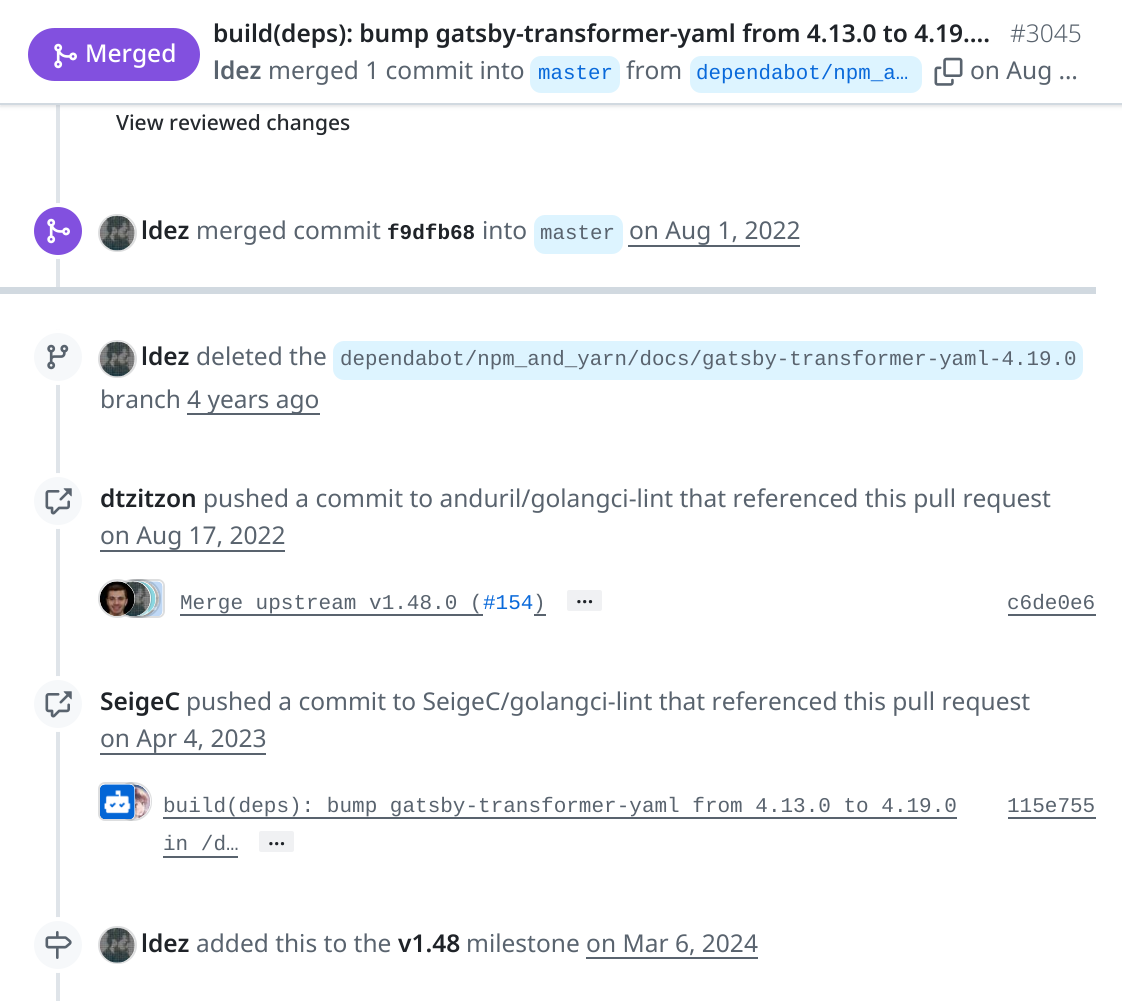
#include <cairo.h>
#include <math.h>
#include <stddef.h>

typedef struct { double x, y, w, h; unsigned color; } box_t;

static void ink(cairo_t *ctx, unsigned color) {
    cairo_set_source_rgb(ctx, (color >> 16) / 255.0, (color >> 8 & 255) / 255.0, (color & 255) / 255.0);
}

static void round_path(cairo_t *ctx, double x, double y, double w, double h, double r) {
    cairo_new_sub_path(ctx);
    cairo_arc(ctx, x + w - r, y + h - r, r, 0, M_PI / 2);
    cairo_arc(ctx, x + r, y + h - r, r, M_PI / 2, M_PI);
    cairo_arc(ctx, x + r, y + r, r, M_PI, 1.5 * M_PI);
    cairo_arc(ctx, x + w - r, y + r, r, 1.5 * M_PI, 2 * M_PI);
    cairo_close_path(ctx);
}

static void blur_box(cairo_t *ctx, double x, double y, double w, double h, double r, double blur, double alpha) {
    cairo_push_group_with_content(ctx, CAIRO_CONTENT_ALPHA);
    cairo_set_operator(ctx, CAIRO_OPERATOR_SOURCE);
    for (int i = 15; i >= -15 && fmin(w, h) + blur * i / 3 > 0; i -= 2) {
        double e = blur * i / 6;
        cairo_set_source_rgba(ctx, 0, 0, 0, alpha * erfc((i - 1) / 8.5) / 2);
        round_path(ctx, x - e, y - e, w + 2 * e, h + 2 * e, fmax(0, fmin(r + e + blur * .6, fmin(w, h) / 2 + e)));
        cairo_fill(ctx);
    }
    cairo_pattern_t *soft = cairo_pop_group(ctx);
    cairo_mask(ctx, soft);
    cairo_pattern_destroy(soft);
}

static void paste(cairo_t *ctx, const char *path, double x, double y, double w, double h) {
    cairo_surface_t *image = cairo_image_surface_create_from_png(path);
    cairo_save(ctx);
    cairo_set_source_surface(ctx, image, x, y);
    cairo_rectangle(ctx, x, y, w, h);
    cairo_fill(ctx);
    cairo_restore(ctx);
    cairo_surface_destroy(image);
}

int main(void) {
    cairo_surface_t *surface = cairo_image_surface_create(CAIRO_FORMAT_RGB24, 1122, 1001);
    cairo_t *ctx = cairo_create(surface);
    cairo_font_options_t *options = cairo_font_options_create();
    cairo_font_options_set_hint_metrics(options, CAIRO_HINT_METRICS_OFF);
    cairo_font_options_set_hint_style(options, CAIRO_HINT_STYLE_NONE);
    cairo_set_font_options(ctx, options);
    cairo_set_miter_limit(ctx, 4);
    ink(ctx, 0xFFFFFF);
    cairo_paint(ctx);
    ink(ctx, 0xDFE4E9);
    cairo_rectangle(ctx, 56, 105, 4, 182);
    cairo_fill(ctx);
    ink(ctx, 0x1F2328);
    blur_box(ctx, 0, 2, 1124, 105, 0, 2.5, 0.06);
    blur_box(ctx, 0, 2, 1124, 105, 0, 1, 0.06);
    ink(ctx, 0xFFFFFF);
    cairo_rectangle(ctx, 0, 0, 1122, 103);
    cairo_fill(ctx);
    ink(ctx, 0xD1D9E0);
    cairo_rectangle(ctx, 0, 103, 1122, 2);
    cairo_fill(ctx);
    ink(ctx, 0x8250DF);
    round_path(ctx, 28, 28, 172, 53, 26.5);
    cairo_fill(ctx);
    paste(ctx, "media/1.png", 54, 43, 23, 26);
    cairo_select_font_face(ctx, "Noto Sans Medium", CAIRO_FONT_SLANT_NORMAL, CAIRO_FONT_WEIGHT_NORMAL);
    cairo_set_font_size(ctx, 24.5);
    ink(ctx, 0xFFFFFF);
    cairo_move_to(ctx, 85, 62);
    cairo_show_text(ctx, "Merged");
    cairo_select_font_face(ctx, "Noto Sans SemiBold", CAIRO_FONT_SLANT_NORMAL, CAIRO_FONT_WEIGHT_NORMAL);
    ink(ctx, 0x1F2328);
    cairo_move_to(ctx, 213, 42);
    cairo_show_text(ctx, "build(deps): bump gatsby-transformer-yaml from 4.13.0 to 4.19.…");
    cairo_select_font_face(ctx, "Noto Sans Light", CAIRO_FONT_SLANT_NORMAL, CAIRO_FONT_WEIGHT_NORMAL);
    ink(ctx, 0x59636E);
    cairo_move_to(ctx, 1010, 42);
    cairo_show_text(ctx, "#3045");
    cairo_select_font_face(ctx, "Noto Sans SemiBold", CAIRO_FONT_SLANT_NORMAL, CAIRO_FONT_WEIGHT_NORMAL);
    cairo_move_to(ctx, 213, 79);
    cairo_show_text(ctx, "ldez");
    cairo_select_font_face(ctx, "Noto Sans", CAIRO_FONT_SLANT_NORMAL, CAIRO_FONT_WEIGHT_NORMAL);
    cairo_move_to(ctx, 268, 79);
    cairo_show_text(ctx, "merged 1 commit into");
    ink(ctx, 0xDDF4FF);
    round_path(ctx, 530, 56, 90, 37, 11);
    cairo_fill(ctx);
    cairo_select_font_face(ctx, "Liberation Mono", CAIRO_FONT_SLANT_NORMAL, CAIRO_FONT_WEIGHT_NORMAL);
    cairo_set_font_size(ctx, 20.8);
    ink(ctx, 0x0969DA);
    cairo_move_to(ctx, 538, 79);
    cairo_show_text(ctx, "master");
    cairo_select_font_face(ctx, "Noto Sans", CAIRO_FONT_SLANT_NORMAL, CAIRO_FONT_WEIGHT_NORMAL);
    cairo_set_font_size(ctx, 24.5);
    ink(ctx, 0x59636E);
    cairo_move_to(ctx, 626, 79);
    cairo_show_text(ctx, "from");
    ink(ctx, 0xDDF4FF);
    round_path(ctx, 690, 56, 232, 37, 11);
    cairo_fill(ctx);
    cairo_select_font_face(ctx, "Liberation Mono", CAIRO_FONT_SLANT_NORMAL, CAIRO_FONT_WEIGHT_NORMAL);
    cairo_set_font_size(ctx, 20.8);
    ink(ctx, 0x0969DA);
    cairo_move_to(ctx, 696, 79);
    cairo_show_text(ctx, "dependabot/npm_a…");
    paste(ctx, "media/2.png", 934, 57, 29, 29);
    cairo_select_font_face(ctx, "Noto Sans", CAIRO_FONT_SLANT_NORMAL, CAIRO_FONT_WEIGHT_NORMAL);
    cairo_set_font_size(ctx, 24.5);
    ink(ctx, 0x59636E);
    cairo_move_to(ctx, 970, 79);
    cairo_show_text(ctx, "on Aug …");
    cairo_select_font_face(ctx, "Noto Sans Medium", CAIRO_FONT_SLANT_NORMAL, CAIRO_FONT_WEIGHT_NORMAL);
    cairo_set_font_size(ctx, 21);
    ink(ctx, 0x25292E);
    cairo_move_to(ctx, 116, 130);
    cairo_show_text(ctx, "View reviewed changes");
    ink(ctx, 0x8250DF);
    cairo_new_path(ctx);
    cairo_arc(ctx, 58, 231, 26, 0, 2 * M_PI);
    cairo_fill_preserve(ctx);
    ink(ctx, 0xFFFFFF);
    cairo_set_line_width(ctx, 4);
    cairo_stroke(ctx);
    paste(ctx, "media/1.png", 47, 218, 23, 26);
    round_path(ctx, 99, 215, 37, 36, 18);
    ink(ctx, 0xDDDEDF);
    cairo_set_line_width(ctx, 2);
    cairo_stroke(ctx);
    ink(ctx, 0xFFFFFF);
    cairo_arc(ctx, 117.5, 232.5, 17.5, 0, 2 * M_PI);
    cairo_fill(ctx);
    paste(ctx, "media/3.png", 99, 215, 36, 36);
    cairo_select_font_face(ctx, "Noto Sans SemiBold", CAIRO_FONT_SLANT_NORMAL, CAIRO_FONT_WEIGHT_NORMAL);
    cairo_set_font_size(ctx, 24.5);
    ink(ctx, 0x1F2328);
    cairo_move_to(ctx, 141, 239);
    cairo_show_text(ctx, "ldez");
    cairo_select_font_face(ctx, "Noto Sans", CAIRO_FONT_SLANT_NORMAL, CAIRO_FONT_WEIGHT_NORMAL);
    ink(ctx, 0x59636E);
    cairo_move_to(ctx, 196, 239);
    cairo_show_text(ctx, "merged commit");
    cairo_select_font_face(ctx, "Liberation Mono", CAIRO_FONT_SLANT_NORMAL, CAIRO_FONT_WEIGHT_BOLD);
    cairo_set_font_size(ctx, 21);
    ink(ctx, 0x1F2328);
    cairo_move_to(ctx, 387, 239);
    cairo_show_text(ctx, "f9dfb68");
    cairo_select_font_face(ctx, "Noto Sans", CAIRO_FONT_SLANT_NORMAL, CAIRO_FONT_WEIGHT_NORMAL);
    cairo_set_font_size(ctx, 24.5);
    ink(ctx, 0x59636E);
    cairo_move_to(ctx, 482, 239);
    cairo_show_text(ctx, "into");
    ink(ctx, 0xDDF4FF);
    round_path(ctx, 534, 215, 89, 39, 11);
    cairo_fill(ctx);
    cairo_select_font_face(ctx, "Liberation Mono", CAIRO_FONT_SLANT_NORMAL, CAIRO_FONT_WEIGHT_NORMAL);
    cairo_set_font_size(ctx, 20.8);
    ink(ctx, 0x59636E);
    cairo_move_to(ctx, 540, 239);
    cairo_show_text(ctx, "master");
    cairo_select_font_face(ctx, "Noto Sans", CAIRO_FONT_SLANT_NORMAL, CAIRO_FONT_WEIGHT_NORMAL);
    cairo_set_font_size(ctx, 24.5);
    cairo_move_to(ctx, 629, 239);
    cairo_show_text(ctx, "on Aug 1, 2022");
    {
        static const box_t items[] = {
            {628, 245, 172, 2, 0x59636E},
            {0, 287, 1096, 7, 0xD1D9E0},
            {56, 329, 4, 672, 0xDFE4E9},
        };
        for (size_t i = 0; i < sizeof items / sizeof *items; i++) {
            ink(ctx, items[i].color);
            cairo_rectangle(ctx, items[i].x, items[i].y, items[i].w, items[i].h);
            cairo_fill(ctx);
        }
    }
    ink(ctx, 0xF6F8FA);
    cairo_new_path(ctx);
    cairo_arc(ctx, 58, 357, 26, 0, 2 * M_PI);
    cairo_fill_preserve(ctx);
    ink(ctx, 0xFFFFFF);
    cairo_set_line_width(ctx, 4);
    cairo_stroke(ctx);
    paste(ctx, "media/4.png", 47, 344, 22, 26);
    round_path(ctx, 99, 341, 37, 36, 18);
    ink(ctx, 0xDDDEDF);
    cairo_set_line_width(ctx, 2);
    cairo_stroke(ctx);
    ink(ctx, 0xFFFFFF);
    cairo_arc(ctx, 117.5, 358.5, 17.5, 0, 2 * M_PI);
    cairo_fill(ctx);
    paste(ctx, "media/3.png", 99, 341, 36, 36);
    cairo_select_font_face(ctx, "Noto Sans SemiBold", CAIRO_FONT_SLANT_NORMAL, CAIRO_FONT_WEIGHT_NORMAL);
    ink(ctx, 0x1F2328);
    cairo_move_to(ctx, 141, 365);
    cairo_show_text(ctx, "ldez");
    cairo_select_font_face(ctx, "Noto Sans", CAIRO_FONT_SLANT_NORMAL, CAIRO_FONT_WEIGHT_NORMAL);
    ink(ctx, 0x59636E);
    cairo_move_to(ctx, 196, 365);
    cairo_show_text(ctx, "deleted the");
    ink(ctx, 0xDDF4FF);
    round_path(ctx, 333, 341, 750, 39, 11);
    cairo_fill(ctx);
    cairo_save(ctx);
    cairo_rectangle(ctx, 340, 341, 736, 39);
    cairo_clip(ctx);
    cairo_select_font_face(ctx, "Liberation Mono", CAIRO_FONT_SLANT_NORMAL, CAIRO_FONT_WEIGHT_NORMAL);
    cairo_set_font_size(ctx, 20.8);
    ink(ctx, 0x59636E);
    cairo_move_to(ctx, 340, 365);
    cairo_show_text(ctx, "dependabot/npm_and_yarn/docs/gatsby-transformer-yaml-4.19.0");
    cairo_restore(ctx);
    ink(ctx, 0x59636E);
    cairo_move_to(ctx, 100, 408);
    cairo_show_text(ctx, "branch");
    cairo_rectangle(ctx, 187, 413, 133, 2);
    cairo_fill(ctx);
    cairo_move_to(ctx, 187, 408);
    cairo_show_text(ctx, "4 years ago");
    ink(ctx, 0xF6F8FA);
    cairo_new_path(ctx);
    cairo_arc(ctx, 58, 501, 26, 0, 2 * M_PI);
    cairo_fill_preserve(ctx);
    ink(ctx, 0xFFFFFF);
    cairo_set_line_width(ctx, 4);
    cairo_stroke(ctx);
    paste(ctx, "media/5.png", 45, 488, 27, 27);
    cairo_select_font_face(ctx, "Noto Sans SemiBold", CAIRO_FONT_SLANT_NORMAL, CAIRO_FONT_WEIGHT_NORMAL);
    ink(ctx, 0x1F2328);
    cairo_move_to(ctx, 100, 507);
    cairo_show_text(ctx, "dtzitzon");
    cairo_select_font_face(ctx, "Noto Sans", CAIRO_FONT_SLANT_NORMAL, CAIRO_FONT_WEIGHT_NORMAL);
    ink(ctx, 0x59636E);
    cairo_move_to(ctx, 203, 507);
    cairo_show_text(ctx, "pushed a commit to anduril/golangci-lint that referenced this pull request");
    cairo_move_to(ctx, 100, 544);
    cairo_show_text(ctx, "on Aug 17, 2022");
    cairo_rectangle(ctx, 100, 550, 185, 2);
    cairo_fill(ctx);
    round_path(ctx, 127, 580, 37, 37, 6);
    ink(ctx, 0xDDDEDF);
    cairo_set_line_width(ctx, 2);
    cairo_stroke(ctx);
    ink(ctx, 0xFFFFFF);
    round_path(ctx, 128, 581, 35, 35, 5);
    cairo_fill(ctx);
    paste(ctx, "media/10.png", 131, 581, 32, 35);
    round_path(ctx, 124, 580, 36, 37, 18);
    cairo_set_source_rgba(ctx, 0.122, 0.137, 0.157, 0.15);
    cairo_stroke(ctx);
    ink(ctx, 0xFFFFFF);
    cairo_arc(ctx, 141.5, 598.5, 17.5, 0, 2 * M_PI);
    cairo_fill(ctx);
    paste(ctx, "media/9.png", 136, 581, 23, 35);
    cairo_arc(ctx, 138.5, 598.5, 18.5, 0, 2 * M_PI);
    cairo_set_source_rgba(ctx, 0.122, 0.137, 0.157, 0.15);
    cairo_stroke(ctx);
    ink(ctx, 0xFFFFFF);
    cairo_arc(ctx, 138.5, 598.5, 17.5, 0, 2 * M_PI);
    cairo_fill(ctx);
    paste(ctx, "media/8.png", 134, 581, 22, 35);
    round_path(ctx, 115, 580, 36, 37, 18);
    cairo_set_source_rgba(ctx, 0.122, 0.137, 0.157, 0.15);
    cairo_stroke(ctx);
    ink(ctx, 0xFFFFFF);
    cairo_arc(ctx, 133.5, 598.5, 17.5, 0, 2 * M_PI);
    cairo_fill(ctx);
    paste(ctx, "media/7.png", 125, 581, 26, 35);
    cairo_arc(ctx, 117.5, 598.5, 18.5, 0, 2 * M_PI);
    cairo_set_source_rgba(ctx, 0.122, 0.137, 0.157, 0.15);
    cairo_stroke(ctx);
    ink(ctx, 0xFFFFFF);
    cairo_arc(ctx, 117.5, 598.5, 17.5, 0, 2 * M_PI);
    cairo_fill(ctx);
    paste(ctx, "media/6.png", 100, 581, 35, 35);
    cairo_select_font_face(ctx, "Liberation Mono", CAIRO_FONT_SLANT_NORMAL, CAIRO_FONT_WEIGHT_NORMAL);
    cairo_set_font_size(ctx, 21);
    ink(ctx, 0x59636E);
    cairo_move_to(ctx, 180, 609);
    cairo_show_text(ctx, "Merge upstream v1.48.0 (");
    cairo_rectangle(ctx, 180, 614, 303, 2);
    cairo_fill(ctx);
    ink(ctx, 0x0969DA);
    cairo_move_to(ctx, 483, 609);
    cairo_show_text(ctx, "#154");
    ink(ctx, 0x59636E);
    cairo_move_to(ctx, 533, 609);
    cairo_show_text(ctx, ")");
    cairo_rectangle(ctx, 534, 614, 12, 2);
    cairo_fill(ctx);
    ink(ctx, 0xF0F1F3);
    round_path(ctx, 567, 590, 35, 21, 2);
    cairo_fill(ctx);
    cairo_select_font_face(ctx, "Noto Sans SemiBold", CAIRO_FONT_SLANT_NORMAL, CAIRO_FONT_WEIGHT_NORMAL);
    ink(ctx, 0x1F2328);
    cairo_move_to(ctx, 576, 603);
    cairo_show_text(ctx, "…");
    cairo_select_font_face(ctx, "Liberation Mono", CAIRO_FONT_SLANT_NORMAL, CAIRO_FONT_WEIGHT_NORMAL);
    ink(ctx, 0x59636E);
    cairo_move_to(ctx, 1007, 609);
    cairo_show_text(ctx, "c6de0e6");
    cairo_rectangle(ctx, 1008, 614, 88, 2);
    cairo_fill(ctx);
    ink(ctx, 0xF6F8FA);
    cairo_arc(ctx, 58, 704, 26, 0, 2 * M_PI);
    cairo_fill_preserve(ctx);
    ink(ctx, 0xFFFFFF);
    cairo_set_line_width(ctx, 4);
    cairo_stroke(ctx);
    paste(ctx, "media/5.png", 45, 691, 27, 27);
    cairo_select_font_face(ctx, "Noto Sans SemiBold", CAIRO_FONT_SLANT_NORMAL, CAIRO_FONT_WEIGHT_NORMAL);
    cairo_set_font_size(ctx, 24.5);
    ink(ctx, 0x1F2328);
    cairo_move_to(ctx, 100, 710);
    cairo_show_text(ctx, "SeigeC");
    cairo_select_font_face(ctx, "Noto Sans", CAIRO_FONT_SLANT_NORMAL, CAIRO_FONT_WEIGHT_NORMAL);
    ink(ctx, 0x59636E);
    cairo_move_to(ctx, 186, 710);
    cairo_show_text(ctx, "pushed a commit to SeigeC/golangci-lint that referenced this pull request");
    cairo_move_to(ctx, 100, 747);
    cairo_show_text(ctx, "on Apr 4, 2023");
    cairo_rectangle(ctx, 100, 753, 166, 2);
    cairo_fill(ctx);
    round_path(ctx, 115, 783, 36, 37, 18);
    ink(ctx, 0xDDDEDF);
    cairo_set_line_width(ctx, 2);
    cairo_stroke(ctx);
    ink(ctx, 0xFFFFFF);
    cairo_arc(ctx, 133.5, 801.5, 17.5, 0, 2 * M_PI);
    cairo_fill(ctx);
    paste(ctx, "media/12.png", 130, 784, 21, 35);
    round_path(ctx, 99, 783, 37, 37, 6);
    cairo_set_source_rgba(ctx, 0.122, 0.137, 0.157, 0.15);
    cairo_stroke(ctx);
    ink(ctx, 0xFFFFFF);
    round_path(ctx, 100, 784, 35, 35, 5);
    cairo_fill(ctx);
    paste(ctx, "media/11.png", 100, 784, 35, 35);
    cairo_select_font_face(ctx, "Liberation Mono", CAIRO_FONT_SLANT_NORMAL, CAIRO_FONT_WEIGHT_NORMAL);
    cairo_set_font_size(ctx, 21);
    ink(ctx, 0x59636E);
    cairo_move_to(ctx, 163, 812);
    cairo_show_text(ctx, "build(deps): bump gatsby-transformer-yaml from 4.13.0 to 4.19.0");
    cairo_rectangle(ctx, 163, 817, 794, 2);
    cairo_fill(ctx);
    cairo_move_to(ctx, 163, 850);
    cairo_show_text(ctx, "in /d…");
    cairo_rectangle(ctx, 163, 856, 75, 2);
    cairo_fill(ctx);
    ink(ctx, 0xF0F1F3);
    round_path(ctx, 259, 831, 35, 21, 2);
    cairo_fill(ctx);
    cairo_select_font_face(ctx, "Noto Sans SemiBold", CAIRO_FONT_SLANT_NORMAL, CAIRO_FONT_WEIGHT_NORMAL);
    ink(ctx, 0x1F2328);
    cairo_move_to(ctx, 268, 845);
    cairo_show_text(ctx, "…");
    cairo_select_font_face(ctx, "Liberation Mono", CAIRO_FONT_SLANT_NORMAL, CAIRO_FONT_WEIGHT_NORMAL);
    ink(ctx, 0x59636E);
    cairo_move_to(ctx, 1007, 812);
    cairo_show_text(ctx, "115e755");
    cairo_rectangle(ctx, 1008, 817, 88, 2);
    cairo_fill(ctx);
    ink(ctx, 0xF6F8FA);
    cairo_arc(ctx, 58, 945, 26, 0, 2 * M_PI);
    cairo_fill_preserve(ctx);
    ink(ctx, 0xFFFFFF);
    cairo_set_line_width(ctx, 4);
    cairo_stroke(ctx);
    paste(ctx, "media/13.png", 45, 931, 27, 28);
    round_path(ctx, 99, 927, 37, 36, 18);
    ink(ctx, 0xDDDEDF);
    cairo_set_line_width(ctx, 2);
    cairo_stroke(ctx);
    ink(ctx, 0xFFFFFF);
    cairo_arc(ctx, 117.5, 945.5, 17.5, 0, 2 * M_PI);
    cairo_fill(ctx);
    paste(ctx, "media/14.png", 99, 927, 36, 36);
    cairo_select_font_face(ctx, "Noto Sans SemiBold", CAIRO_FONT_SLANT_NORMAL, CAIRO_FONT_WEIGHT_NORMAL);
    cairo_set_font_size(ctx, 24.5);
    ink(ctx, 0x1F2328);
    cairo_move_to(ctx, 141, 952);
    cairo_show_text(ctx, "ldez");
    cairo_select_font_face(ctx, "Noto Sans", CAIRO_FONT_SLANT_NORMAL, CAIRO_FONT_WEIGHT_NORMAL);
    ink(ctx, 0x59636E);
    cairo_move_to(ctx, 196, 952);
    cairo_show_text(ctx, "added this to the");
    cairo_select_font_face(ctx, "Noto Sans SemiBold", CAIRO_FONT_SLANT_NORMAL, CAIRO_FONT_WEIGHT_NORMAL);
    ink(ctx, 0x1F2328);
    cairo_move_to(ctx, 398, 952);
    cairo_show_text(ctx, "v1.48");
    cairo_select_font_face(ctx, "Noto Sans", CAIRO_FONT_SLANT_NORMAL, CAIRO_FONT_WEIGHT_NORMAL);
    ink(ctx, 0x59636E);
    cairo_move_to(ctx, 466, 952);
    cairo_show_text(ctx, "milestone on Mar 6, 2024");
    cairo_rectangle(ctx, 586, 957, 172, 2);
    cairo_fill(ctx);
    cairo_surface_write_to_png(surface, "image.png");
    cairo_font_options_destroy(options);
    cairo_destroy(ctx);
    cairo_surface_destroy(surface);
    return 0;
}
